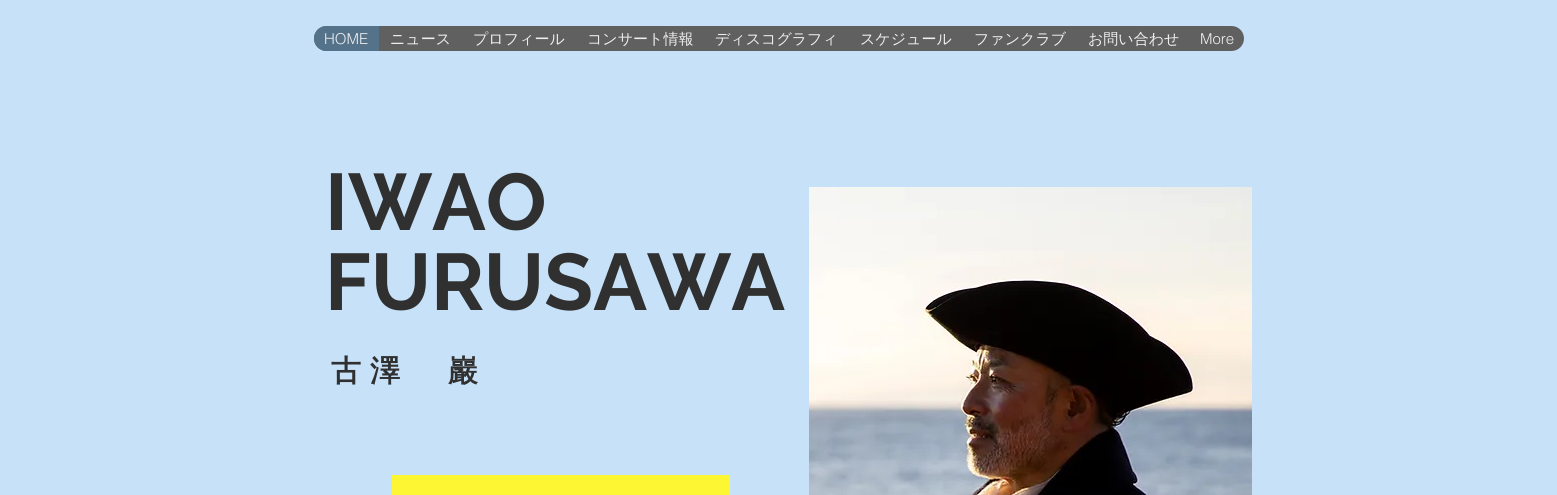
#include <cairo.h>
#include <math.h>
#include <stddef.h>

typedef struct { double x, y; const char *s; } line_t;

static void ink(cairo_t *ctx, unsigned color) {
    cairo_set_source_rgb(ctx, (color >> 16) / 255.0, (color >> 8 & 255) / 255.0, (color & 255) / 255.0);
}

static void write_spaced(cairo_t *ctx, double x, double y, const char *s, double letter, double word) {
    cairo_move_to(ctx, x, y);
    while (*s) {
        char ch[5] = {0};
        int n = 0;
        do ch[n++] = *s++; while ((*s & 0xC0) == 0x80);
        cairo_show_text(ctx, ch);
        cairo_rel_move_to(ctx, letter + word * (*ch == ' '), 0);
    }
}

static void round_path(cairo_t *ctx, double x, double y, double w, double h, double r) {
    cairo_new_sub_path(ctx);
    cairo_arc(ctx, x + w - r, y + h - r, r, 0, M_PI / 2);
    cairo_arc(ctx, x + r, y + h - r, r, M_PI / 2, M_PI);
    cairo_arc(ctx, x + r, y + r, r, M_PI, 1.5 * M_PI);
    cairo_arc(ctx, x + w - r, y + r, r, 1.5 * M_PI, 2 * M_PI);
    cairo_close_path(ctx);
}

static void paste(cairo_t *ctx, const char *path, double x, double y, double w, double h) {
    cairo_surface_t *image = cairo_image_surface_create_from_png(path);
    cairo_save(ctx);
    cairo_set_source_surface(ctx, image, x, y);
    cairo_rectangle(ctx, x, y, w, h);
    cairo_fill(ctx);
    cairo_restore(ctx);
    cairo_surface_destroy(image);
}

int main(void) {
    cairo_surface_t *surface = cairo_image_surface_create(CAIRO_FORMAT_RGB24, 1557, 495);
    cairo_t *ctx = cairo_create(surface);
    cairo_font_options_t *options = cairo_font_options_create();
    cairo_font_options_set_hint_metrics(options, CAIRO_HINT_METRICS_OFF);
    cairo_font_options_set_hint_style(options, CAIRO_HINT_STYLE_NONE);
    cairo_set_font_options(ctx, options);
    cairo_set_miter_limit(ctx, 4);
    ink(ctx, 0xC7E2F8);
    cairo_paint(ctx);
    ink(ctx, 0x606060);
    round_path(ctx, 314, 26, 930, 25, 12.5);
    cairo_fill(ctx);
    ink(ctx, 0x54728A);
    cairo_new_path(ctx);
    cairo_move_to(ctx, 326.5, 26);
    cairo_line_to(ctx, 379, 26);
    cairo_line_to(ctx, 379, 51);
    cairo_line_to(ctx, 326.5, 51);
    cairo_curve_to(ctx, 319.5, 51, 314, 45.5, 314, 38.5);
    cairo_curve_to(ctx, 314, 31.5, 319.5, 26, 326.5, 26);
    cairo_close_path(ctx);
    cairo_fill(ctx);
    cairo_select_font_face(ctx, "helvetica Light", CAIRO_FONT_SLANT_NORMAL, CAIRO_FONT_WEIGHT_NORMAL);
    cairo_set_font_size(ctx, 15);
    ink(ctx, 0xEFEFEF);
    cairo_move_to(ctx, 324, 44);
    cairo_show_text(ctx, "HOME");
    cairo_select_font_face(ctx, "WenQuanYi Zen Hei Medium", CAIRO_FONT_SLANT_NORMAL, CAIRO_FONT_WEIGHT_NORMAL);
    {
        static const line_t items[] = {
            {390, 44, "ニュース"},
            {473, 44, "プロフィール"},
            {587, 44, "コンサート情報"},
            {715, 44, "ディスコグラフィ"},
            {860, 44, "スケジュール"},
            {974, 44, "ファンクラブ"},
            {1088, 44, "お問い合わせ"},
        };
        for (size_t i = 0; i < sizeof items / sizeof *items; i++) {
            cairo_move_to(ctx, items[i].x, items[i].y);
            cairo_show_text(ctx, items[i].s);
        }
    }
    cairo_select_font_face(ctx, "helvetica Light", CAIRO_FONT_SLANT_NORMAL, CAIRO_FONT_WEIGHT_NORMAL);
    cairo_move_to(ctx, 1200, 44);
    cairo_show_text(ctx, "More");
    cairo_select_font_face(ctx, "Raleway", CAIRO_FONT_SLANT_NORMAL, CAIRO_FONT_WEIGHT_BOLD);
    cairo_set_font_size(ctx, 80);
    ink(ctx, 0x303030);
    cairo_move_to(ctx, 325, 230);
    cairo_show_text(ctx, "IWAO");
    cairo_move_to(ctx, 325, 310);
    cairo_show_text(ctx, "FURUSAWA");
    paste(ctx, "media/1.png", 809, 187, 443, 308);
    cairo_select_font_face(ctx, "WenQuanYi Zen Hei", CAIRO_FONT_SLANT_NORMAL, CAIRO_FONT_WEIGHT_BOLD);
    cairo_set_font_size(ctx, 30);
    write_spaced(ctx, 331, 381, "古澤　巖", 9, 0);
    ink(ctx, 0xFDF733);
    cairo_rectangle(ctx, 392, 475, 338, 20);
    cairo_fill(ctx);
    cairo_surface_write_to_png(surface, "image.png");
    cairo_font_options_destroy(options);
    cairo_destroy(ctx);
    cairo_surface_destroy(surface);
    return 0;
}
